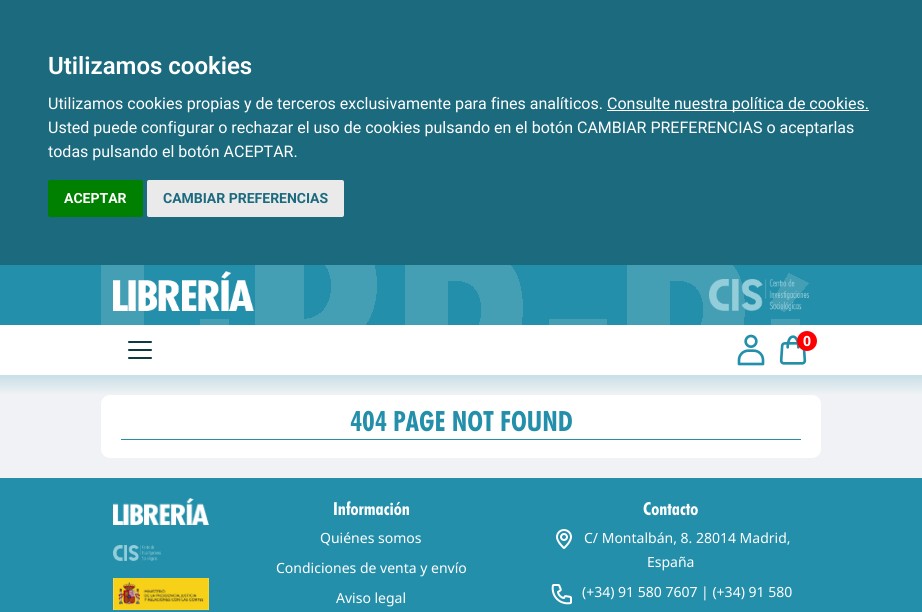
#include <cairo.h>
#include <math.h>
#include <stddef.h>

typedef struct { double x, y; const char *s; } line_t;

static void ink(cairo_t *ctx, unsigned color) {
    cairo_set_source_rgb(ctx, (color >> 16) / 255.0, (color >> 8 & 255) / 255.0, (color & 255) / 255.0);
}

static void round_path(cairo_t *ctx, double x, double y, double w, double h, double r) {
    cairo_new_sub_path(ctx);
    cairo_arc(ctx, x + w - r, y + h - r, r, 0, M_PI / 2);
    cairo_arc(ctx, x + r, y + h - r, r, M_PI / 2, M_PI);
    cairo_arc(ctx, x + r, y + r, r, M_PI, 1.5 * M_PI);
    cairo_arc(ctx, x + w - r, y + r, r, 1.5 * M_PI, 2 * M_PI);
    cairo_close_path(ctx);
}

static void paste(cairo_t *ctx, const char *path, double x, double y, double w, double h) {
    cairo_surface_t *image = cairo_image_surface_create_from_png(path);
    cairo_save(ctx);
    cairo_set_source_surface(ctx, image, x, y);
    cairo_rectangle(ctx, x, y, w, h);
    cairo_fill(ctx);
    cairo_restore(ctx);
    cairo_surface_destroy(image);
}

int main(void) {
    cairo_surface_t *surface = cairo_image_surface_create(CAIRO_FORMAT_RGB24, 922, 612);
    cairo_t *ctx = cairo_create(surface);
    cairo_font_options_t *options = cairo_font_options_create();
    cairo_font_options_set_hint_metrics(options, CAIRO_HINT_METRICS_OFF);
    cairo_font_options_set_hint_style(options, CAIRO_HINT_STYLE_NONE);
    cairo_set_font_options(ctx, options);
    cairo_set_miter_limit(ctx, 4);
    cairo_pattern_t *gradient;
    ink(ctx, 0xF0F2F5);
    cairo_paint(ctx);
    ink(ctx, 0x1B6A7E);
    cairo_rectangle(ctx, 0, 0, 922, 265);
    cairo_fill(ctx);
    cairo_select_font_face(ctx, "Roboto SemiBold", CAIRO_FONT_SLANT_NORMAL, CAIRO_FONT_WEIGHT_NORMAL);
    cairo_set_font_size(ctx, 24);
    ink(ctx, 0xFFFFFF);
    cairo_move_to(ctx, 48, 74);
    cairo_show_text(ctx, "Utilizamos cookies");
    cairo_select_font_face(ctx, "Roboto", CAIRO_FONT_SLANT_NORMAL, CAIRO_FONT_WEIGHT_NORMAL);
    cairo_set_font_size(ctx, 16);
    cairo_move_to(ctx, 48, 109);
    cairo_show_text(ctx, "Utilizamos cookies propias y de terceros exclusivamente para fines analíticos.");
    cairo_rectangle(ctx, 607, 110, 262, 1);
    cairo_fill(ctx);
    {
        static const line_t items[] = {
            {607, 109, "Consulte nuestra política de cookies."},
            {48, 133, "Usted puede configurar o rechazar el uso de cookies pulsando en el botón CAMBIAR PREFERENCIAS o aceptarlas"},
            {48, 157, "todas pulsando el botón ACEPTAR."},
        };
        for (size_t i = 0; i < sizeof items / sizeof *items; i++) {
            cairo_move_to(ctx, items[i].x, items[i].y);
            cairo_show_text(ctx, items[i].s);
        }
    }
    ink(ctx, 0x008000);
    round_path(ctx, 48, 180, 95, 37, 2);
    cairo_fill(ctx);
    cairo_select_font_face(ctx, "Roboto", CAIRO_FONT_SLANT_NORMAL, CAIRO_FONT_WEIGHT_BOLD);
    cairo_set_font_size(ctx, 14);
    ink(ctx, 0xFFFFFF);
    cairo_move_to(ctx, 64, 203);
    cairo_show_text(ctx, "ACEPTAR");
    ink(ctx, 0xEAEAEA);
    round_path(ctx, 147, 180, 197, 37, 2);
    cairo_fill(ctx);
    ink(ctx, 0x1B6A7E);
    cairo_move_to(ctx, 163, 203);
    cairo_show_text(ctx, "CAMBIAR PREFERENCIAS");
    ink(ctx, 0x248FAA);
    cairo_rectangle(ctx, 0, 265, 922, 60);
    cairo_fill(ctx);
    paste(ctx, "media/1.png", 101, 265, 708, 60);
    paste(ctx, "media/2.png", 113, 271, 141, 40);
    paste(ctx, "media/3.png", 709, 279, 100, 32);
    ink(ctx, 0xFFFFFF);
    cairo_rectangle(ctx, 0, 325, 922, 50);
    cairo_fill(ctx);
    paste(ctx, "media/4.png", 128, 341, 24, 18);
    paste(ctx, "media/5.png", 737, 334, 28, 32);
    paste(ctx, "media/6.png", 779, 335, 28, 30);
    ink(ctx, 0xFF0000);
    cairo_arc(ctx, 807, 341, 10, 0, 2 * M_PI);
    cairo_fill(ctx);
    cairo_select_font_face(ctx, "Noto Sans", CAIRO_FONT_SLANT_NORMAL, CAIRO_FONT_WEIGHT_BOLD);
    ink(ctx, 0xFFFFFF);
    cairo_move_to(ctx, 803, 346);
    cairo_show_text(ctx, "0");
    gradient = cairo_pattern_create_linear(461, 375, 461, 395);
    cairo_pattern_add_color_stop_rgba(gradient, 0, 0.788, 0.875, 0.902, 1);
    cairo_pattern_add_color_stop_rgba(gradient, 1, 0.941, 0.949, 0.961, 1);
    cairo_set_source(ctx, gradient);
    cairo_pattern_destroy(gradient);
    cairo_rectangle(ctx, 0, 375, 922, 19);
    cairo_fill(ctx);
    ink(ctx, 0xFFFFFF);
    round_path(ctx, 101, 395, 720, 63, 9);
    cairo_fill(ctx);
    ink(ctx, 0x248FAA);
    cairo_rectangle(ctx, 121, 439, 680, 1);
    cairo_fill(ctx);
    cairo_select_font_face(ctx, "Futura", CAIRO_FONT_SLANT_NORMAL, CAIRO_FONT_WEIGHT_BOLD);
    cairo_set_font_size(ctx, 28);
    cairo_move_to(ctx, 350, 431);
    cairo_show_text(ctx, "404 PAGE NOT FOUND");
    cairo_rectangle(ctx, 0, 478, 922, 134);
    cairo_fill(ctx);
    paste(ctx, "media/7.png", 113, 498, 96, 27);
    paste(ctx, "media/8.png", 113, 545, 48, 16);
    paste(ctx, "media/9.png", 113, 578, 96, 32);
    cairo_set_font_size(ctx, 18);
    ink(ctx, 0xFFFFFF);
    cairo_move_to(ctx, 333, 515);
    cairo_show_text(ctx, "Información");
    cairo_select_font_face(ctx, "Noto Sans", CAIRO_FONT_SLANT_NORMAL, CAIRO_FONT_WEIGHT_NORMAL);
    cairo_set_font_size(ctx, 14);
    {
        static const line_t items[] = {
            {320, 543, "Quiénes somos"},
            {276, 573, "Condiciones de venta y envío"},
            {336, 603, "Aviso legal"},
        };
        for (size_t i = 0; i < sizeof items / sizeof *items; i++) {
            cairo_move_to(ctx, items[i].x, items[i].y);
            cairo_show_text(ctx, items[i].s);
        }
    }
    cairo_select_font_face(ctx, "Futura", CAIRO_FONT_SLANT_NORMAL, CAIRO_FONT_WEIGHT_BOLD);
    cairo_set_font_size(ctx, 18);
    cairo_move_to(ctx, 643, 515);
    cairo_show_text(ctx, "Contacto");
    paste(ctx, "media/10.png", 556, 529, 16, 20);
    cairo_select_font_face(ctx, "Noto Sans", CAIRO_FONT_SLANT_NORMAL, CAIRO_FONT_WEIGHT_NORMAL);
    cairo_set_font_size(ctx, 14);
    cairo_move_to(ctx, 584, 543);
    cairo_show_text(ctx, "C/ Montalbán, 8. 28014 Madrid,");
    cairo_move_to(ctx, 647, 567);
    cairo_show_text(ctx, "España");
    paste(ctx, "media/11.png", 551, 584, 21, 21);
    cairo_move_to(ctx, 582, 597);
    cairo_show_text(ctx, "(+34) 91 580 7607 | (+34) 91 580");
    cairo_surface_write_to_png(surface, "image.png");
    cairo_font_options_destroy(options);
    cairo_destroy(ctx);
    cairo_surface_destroy(surface);
    return 0;
}
